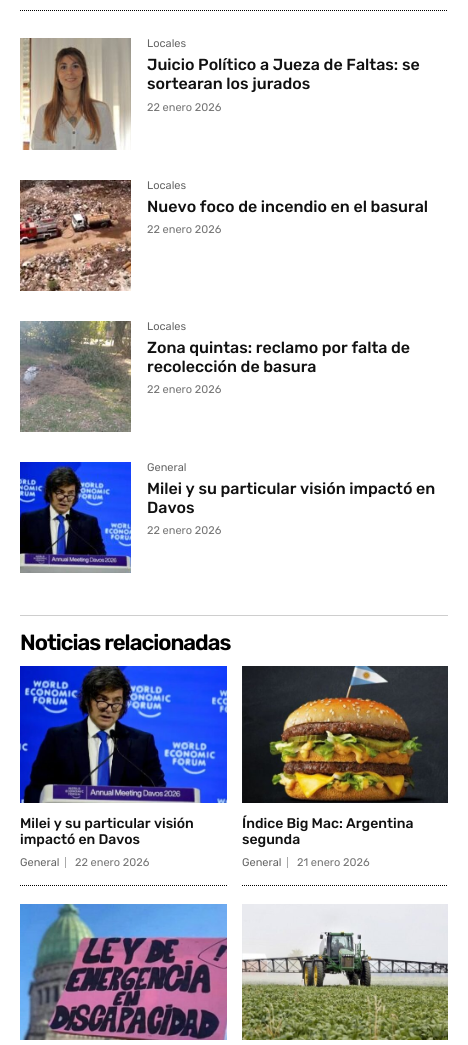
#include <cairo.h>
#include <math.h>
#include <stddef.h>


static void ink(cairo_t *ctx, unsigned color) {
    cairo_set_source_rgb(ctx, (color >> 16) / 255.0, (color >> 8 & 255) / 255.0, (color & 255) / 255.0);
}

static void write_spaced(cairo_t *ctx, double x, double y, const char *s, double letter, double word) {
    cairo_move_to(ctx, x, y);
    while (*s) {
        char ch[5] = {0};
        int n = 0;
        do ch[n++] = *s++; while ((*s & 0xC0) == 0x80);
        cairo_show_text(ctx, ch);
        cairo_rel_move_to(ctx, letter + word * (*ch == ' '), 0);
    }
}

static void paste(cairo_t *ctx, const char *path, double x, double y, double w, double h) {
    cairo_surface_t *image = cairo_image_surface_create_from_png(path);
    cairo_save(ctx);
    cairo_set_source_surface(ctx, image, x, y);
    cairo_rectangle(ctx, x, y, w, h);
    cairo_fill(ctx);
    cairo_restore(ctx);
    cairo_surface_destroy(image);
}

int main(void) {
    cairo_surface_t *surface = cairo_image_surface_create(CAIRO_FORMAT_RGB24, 468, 1045);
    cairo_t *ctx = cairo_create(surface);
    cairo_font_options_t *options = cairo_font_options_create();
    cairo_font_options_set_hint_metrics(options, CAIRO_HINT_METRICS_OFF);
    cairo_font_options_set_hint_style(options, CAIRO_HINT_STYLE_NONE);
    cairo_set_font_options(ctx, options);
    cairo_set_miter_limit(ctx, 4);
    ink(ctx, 0xFFFFFF);
    cairo_paint(ctx);
    cairo_new_path(ctx);
    cairo_move_to(ctx, 20, 10.5);
    cairo_line_to(ctx, 448, 10.5);
    ink(ctx, 0x000000);
    cairo_set_line_width(ctx, 1);
    cairo_set_dash(ctx, (double[]){1, 1}, 2, 0);
    cairo_stroke(ctx);
    paste(ctx, "media/1.png", 20, 38, 111, 112);
    cairo_select_font_face(ctx, "Rubik", CAIRO_FONT_SLANT_NORMAL, CAIRO_FONT_WEIGHT_NORMAL);
    cairo_set_font_size(ctx, 11);
    ink(ctx, 0x666666);
    cairo_move_to(ctx, 147, 47);
    cairo_show_text(ctx, "Locales");
    cairo_select_font_face(ctx, "Rubik Medium", CAIRO_FONT_SLANT_NORMAL, CAIRO_FONT_WEIGHT_NORMAL);
    cairo_set_font_size(ctx, 16);
    ink(ctx, 0x111111);
    cairo_move_to(ctx, 147, 70);
    cairo_show_text(ctx, "Juicio Político a Jueza de Faltas: se");
    cairo_move_to(ctx, 147, 89);
    cairo_show_text(ctx, "sortearan los jurados");
    cairo_select_font_face(ctx, "Rubik", CAIRO_FONT_SLANT_NORMAL, CAIRO_FONT_WEIGHT_NORMAL);
    cairo_set_font_size(ctx, 11);
    ink(ctx, 0x767676);
    cairo_move_to(ctx, 147, 111);
    cairo_show_text(ctx, "22 enero 2026");
    paste(ctx, "media/2.png", 20, 180, 111, 111);
    ink(ctx, 0x666666);
    cairo_move_to(ctx, 147, 189);
    cairo_show_text(ctx, "Locales");
    cairo_select_font_face(ctx, "Rubik Medium", CAIRO_FONT_SLANT_NORMAL, CAIRO_FONT_WEIGHT_NORMAL);
    cairo_set_font_size(ctx, 16);
    ink(ctx, 0x111111);
    cairo_move_to(ctx, 147, 212);
    cairo_show_text(ctx, "Nuevo foco de incendio en el basural");
    cairo_select_font_face(ctx, "Rubik", CAIRO_FONT_SLANT_NORMAL, CAIRO_FONT_WEIGHT_NORMAL);
    cairo_set_font_size(ctx, 11);
    ink(ctx, 0x767676);
    cairo_move_to(ctx, 147, 233);
    cairo_show_text(ctx, "22 enero 2026");
    paste(ctx, "media/3.png", 20, 321, 111, 111);
    ink(ctx, 0x666666);
    cairo_move_to(ctx, 147, 330);
    cairo_show_text(ctx, "Locales");
    cairo_select_font_face(ctx, "Rubik Medium", CAIRO_FONT_SLANT_NORMAL, CAIRO_FONT_WEIGHT_NORMAL);
    cairo_set_font_size(ctx, 16);
    ink(ctx, 0x111111);
    cairo_move_to(ctx, 147, 353);
    cairo_show_text(ctx, "Zona quintas: reclamo por falta de");
    cairo_move_to(ctx, 147, 372);
    cairo_show_text(ctx, "recolección de basura");
    cairo_select_font_face(ctx, "Rubik", CAIRO_FONT_SLANT_NORMAL, CAIRO_FONT_WEIGHT_NORMAL);
    cairo_set_font_size(ctx, 11);
    ink(ctx, 0x767676);
    cairo_move_to(ctx, 147, 393);
    cairo_show_text(ctx, "22 enero 2026");
    paste(ctx, "media/4.png", 20, 462, 111, 111);
    ink(ctx, 0x666666);
    cairo_move_to(ctx, 147, 471);
    cairo_show_text(ctx, "General");
    cairo_select_font_face(ctx, "Rubik Medium", CAIRO_FONT_SLANT_NORMAL, CAIRO_FONT_WEIGHT_NORMAL);
    cairo_set_font_size(ctx, 16);
    ink(ctx, 0x111111);
    cairo_move_to(ctx, 147, 494);
    cairo_show_text(ctx, "Milei y su particular visión impactó en");
    cairo_move_to(ctx, 147, 513);
    cairo_show_text(ctx, "Davos");
    cairo_select_font_face(ctx, "Rubik", CAIRO_FONT_SLANT_NORMAL, CAIRO_FONT_WEIGHT_NORMAL);
    cairo_set_font_size(ctx, 11);
    ink(ctx, 0x767676);
    cairo_move_to(ctx, 147, 534);
    cairo_show_text(ctx, "22 enero 2026");
    ink(ctx, 0xCECECE);
    cairo_rectangle(ctx, 20, 615, 428, 1);
    cairo_fill(ctx);
    cairo_select_font_face(ctx, "Rubik SemiBold", CAIRO_FONT_SLANT_NORMAL, CAIRO_FONT_WEIGHT_NORMAL);
    cairo_set_font_size(ctx, 22);
    ink(ctx, 0x000000);
    write_spaced(ctx, 20, 650, "Noticias relacionadas", -1, 0);
    paste(ctx, "media/5.png", 20, 666, 207, 137);
    cairo_select_font_face(ctx, "Rubik Medium", CAIRO_FONT_SLANT_NORMAL, CAIRO_FONT_WEIGHT_NORMAL);
    cairo_set_font_size(ctx, 14);
    ink(ctx, 0x111111);
    cairo_move_to(ctx, 20, 828);
    cairo_show_text(ctx, "Milei y su particular visión");
    cairo_move_to(ctx, 20, 844);
    cairo_show_text(ctx, "impactó en Davos");
    ink(ctx, 0xAAAAAA);
    cairo_rectangle(ctx, 65, 857, 1, 11);
    cairo_fill(ctx);
    cairo_select_font_face(ctx, "Rubik", CAIRO_FONT_SLANT_NORMAL, CAIRO_FONT_WEIGHT_NORMAL);
    cairo_set_font_size(ctx, 11);
    ink(ctx, 0x666666);
    cairo_move_to(ctx, 20, 866);
    cairo_show_text(ctx, "General");
    ink(ctx, 0x767676);
    cairo_move_to(ctx, 75, 866);
    cairo_show_text(ctx, "22 enero 2026");
    cairo_new_path(ctx);
    cairo_move_to(ctx, 20, 885.5);
    cairo_line_to(ctx, 227, 885.5);
    ink(ctx, 0x000000);
    cairo_stroke(ctx);
    paste(ctx, "media/6.png", 242, 666, 206, 137);
    cairo_select_font_face(ctx, "Rubik Medium", CAIRO_FONT_SLANT_NORMAL, CAIRO_FONT_WEIGHT_NORMAL);
    cairo_set_font_size(ctx, 14);
    ink(ctx, 0x111111);
    cairo_move_to(ctx, 242, 828);
    cairo_show_text(ctx, "Índice Big Mac: Argentina");
    cairo_move_to(ctx, 242, 844);
    cairo_show_text(ctx, "segunda");
    ink(ctx, 0xAAAAAA);
    cairo_rectangle(ctx, 287, 857, 1, 11);
    cairo_fill(ctx);
    cairo_select_font_face(ctx, "Rubik", CAIRO_FONT_SLANT_NORMAL, CAIRO_FONT_WEIGHT_NORMAL);
    cairo_set_font_size(ctx, 11);
    ink(ctx, 0x666666);
    cairo_move_to(ctx, 242, 866);
    cairo_show_text(ctx, "General");
    ink(ctx, 0x767676);
    cairo_move_to(ctx, 297, 866);
    cairo_show_text(ctx, "21 enero 2026");
    cairo_new_path(ctx);
    cairo_move_to(ctx, 242, 885.5);
    cairo_line_to(ctx, 448, 885.5);
    ink(ctx, 0x000000);
    cairo_stroke(ctx);
    paste(ctx, "media/7.png", 20, 904, 207, 136);
    paste(ctx, "media/8.png", 242, 904, 206, 136);
    cairo_surface_write_to_png(surface, "image.png");
    cairo_font_options_destroy(options);
    cairo_destroy(ctx);
    cairo_surface_destroy(surface);
    return 0;
}
